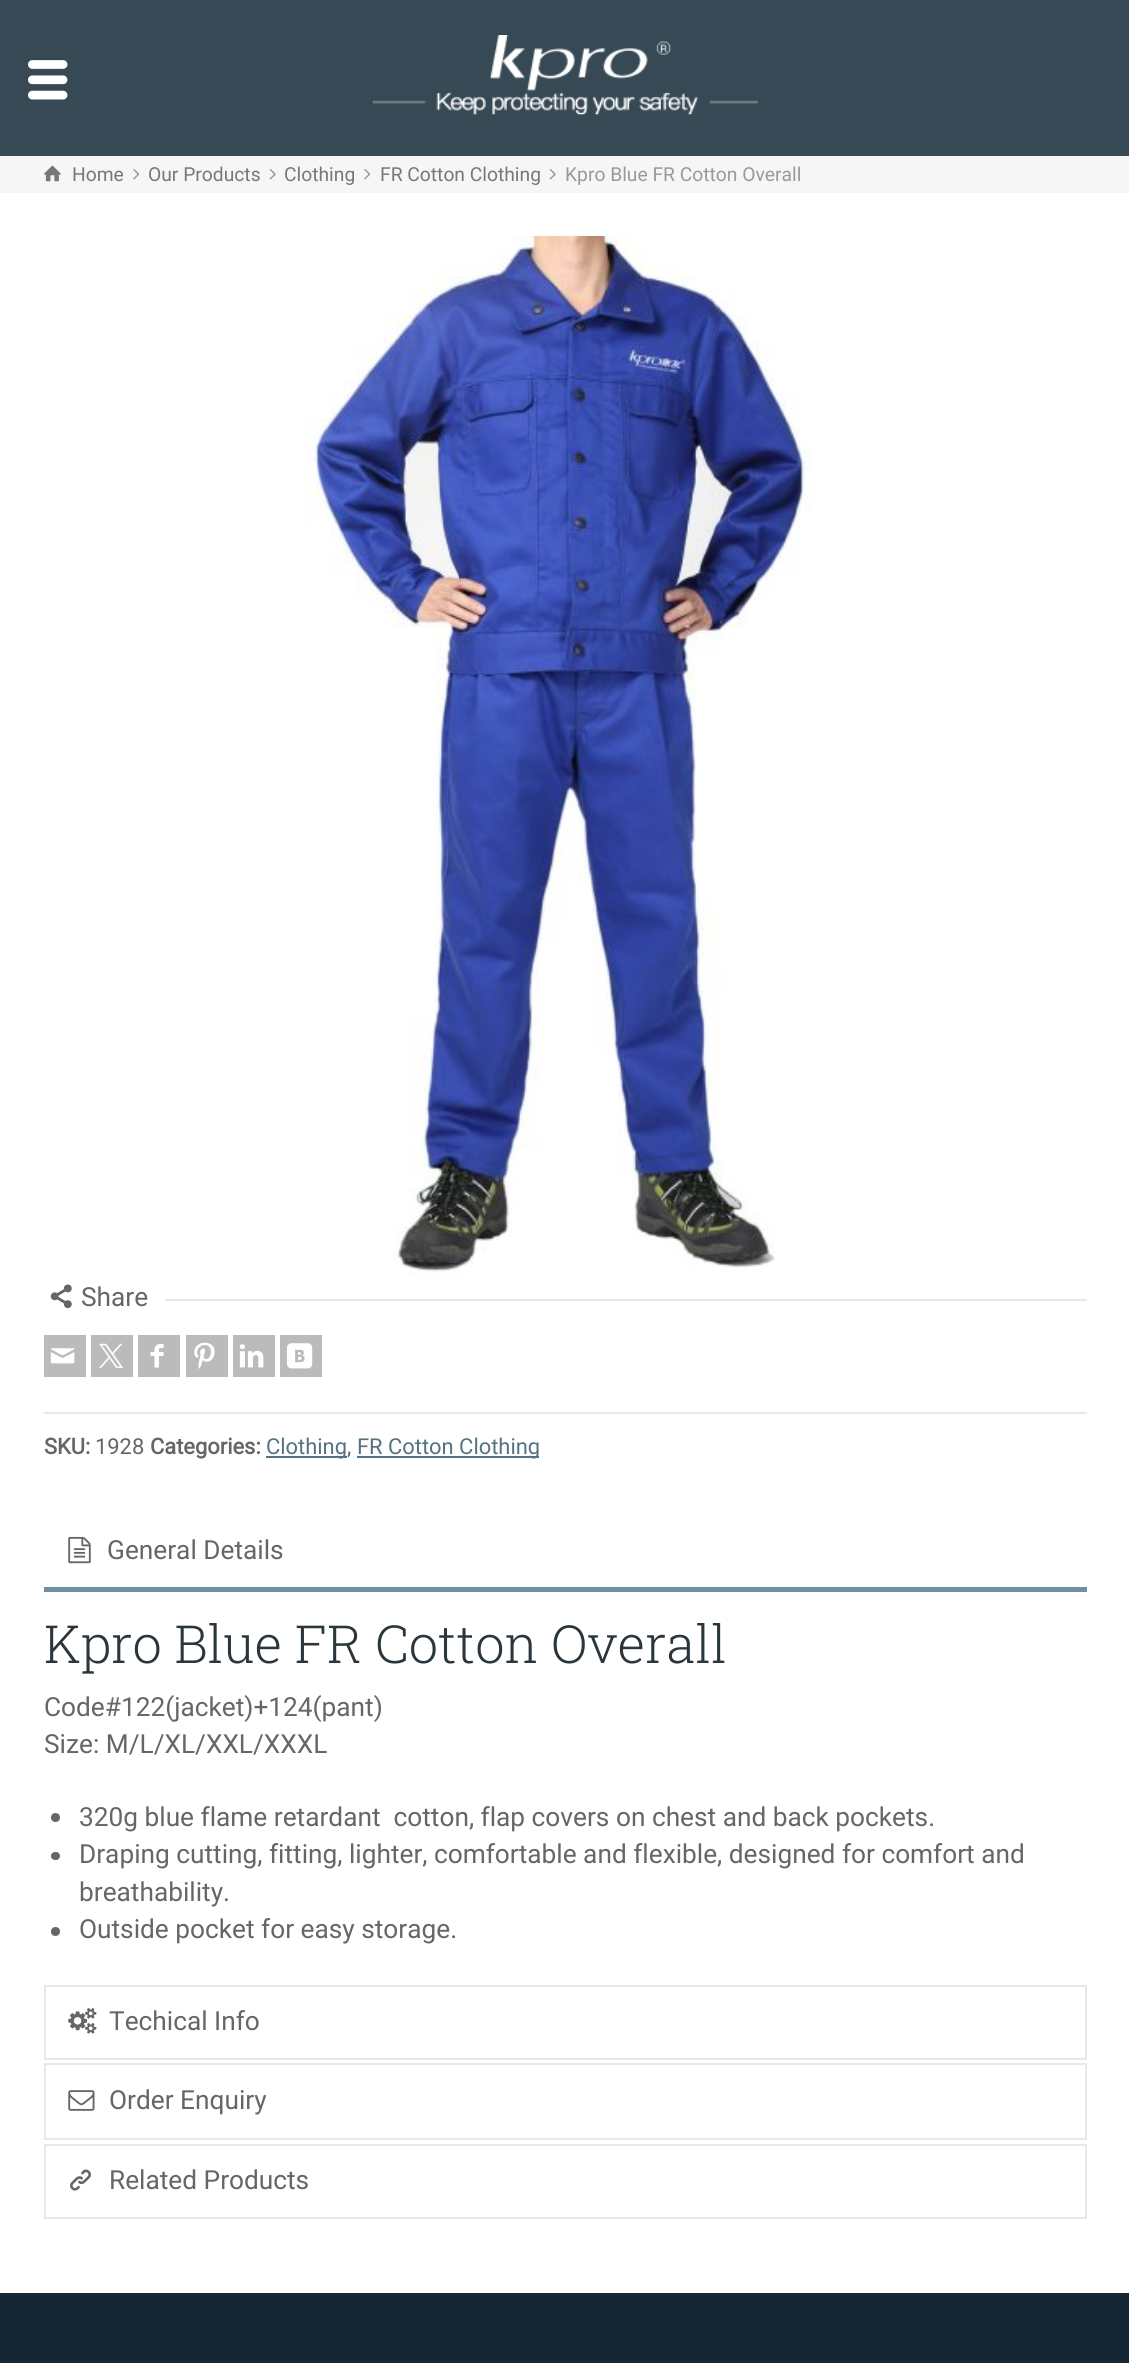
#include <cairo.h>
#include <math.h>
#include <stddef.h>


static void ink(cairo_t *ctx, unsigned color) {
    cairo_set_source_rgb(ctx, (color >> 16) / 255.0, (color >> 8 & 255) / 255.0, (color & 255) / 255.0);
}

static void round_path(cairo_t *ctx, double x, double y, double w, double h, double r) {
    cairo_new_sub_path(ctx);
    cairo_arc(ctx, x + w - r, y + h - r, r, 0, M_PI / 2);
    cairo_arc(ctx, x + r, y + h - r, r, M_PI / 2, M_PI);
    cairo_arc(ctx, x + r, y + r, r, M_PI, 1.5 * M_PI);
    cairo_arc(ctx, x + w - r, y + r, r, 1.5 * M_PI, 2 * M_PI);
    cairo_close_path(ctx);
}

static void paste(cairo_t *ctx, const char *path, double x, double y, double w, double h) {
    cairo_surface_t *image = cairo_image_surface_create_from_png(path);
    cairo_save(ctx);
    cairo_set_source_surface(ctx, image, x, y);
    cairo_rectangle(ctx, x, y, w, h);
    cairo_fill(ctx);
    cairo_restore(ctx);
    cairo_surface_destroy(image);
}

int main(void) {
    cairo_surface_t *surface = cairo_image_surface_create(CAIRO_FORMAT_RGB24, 1129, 2363);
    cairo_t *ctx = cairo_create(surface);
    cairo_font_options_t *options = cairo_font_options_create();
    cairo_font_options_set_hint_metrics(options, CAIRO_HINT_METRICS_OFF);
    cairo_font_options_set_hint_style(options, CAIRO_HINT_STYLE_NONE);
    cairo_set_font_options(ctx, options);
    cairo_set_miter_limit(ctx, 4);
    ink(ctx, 0x162733);
    cairo_paint(ctx);
    ink(ctx, 0x374955);
    cairo_rectangle(ctx, 0, 0, 1129, 156);
    cairo_fill(ctx);
    paste(ctx, "media/1.png", 28, 60, 40, 40);
    paste(ctx, "media/2.png", 372, 35, 386, 80);
    ink(ctx, 0xF6F6F6);
    cairo_rectangle(ctx, 0, 156, 1129, 37);
    cairo_fill(ctx);
    paste(ctx, "media/3.png", 43, 165, 18, 17);
    cairo_select_font_face(ctx, "Roboto", CAIRO_FONT_SLANT_NORMAL, CAIRO_FONT_WEIGHT_NORMAL);
    cairo_set_font_size(ctx, 19.25);
    ink(ctx, 0x777777);
    cairo_move_to(ctx, 72, 181);
    cairo_show_text(ctx, "Home");
    paste(ctx, "media/4.png", 133, 169, 7, 11);
    cairo_move_to(ctx, 148, 181);
    cairo_show_text(ctx, "Our Products");
    paste(ctx, "media/5.png", 269, 168, 7, 12);
    cairo_move_to(ctx, 284, 181);
    cairo_show_text(ctx, "Clothing");
    paste(ctx, "media/4.png", 364, 169, 7, 11);
    cairo_move_to(ctx, 380, 181);
    cairo_show_text(ctx, "FR Cotton Clothing");
    paste(ctx, "media/5.png", 549, 168, 7, 12);
    ink(ctx, 0x999999);
    cairo_move_to(ctx, 565, 181);
    cairo_show_text(ctx, "Kpro Blue FR Cotton Overall");
    ink(ctx, 0xFFFFFF);
    cairo_rectangle(ctx, 0, 193, 1129, 2100);
    cairo_fill(ctx);
    paste(ctx, "media/6.png", 304, 236, 508, 1041);
    paste(ctx, "media/7.png", 50, 1284, 22, 25);
    cairo_set_font_size(ctx, 26.25);
    ink(ctx, 0x666666);
    cairo_move_to(ctx, 81, 1306);
    cairo_show_text(ctx, "Share");
    ink(ctx, 0xE8E8E8);
    cairo_rectangle(ctx, 165, 1299, 922, 2);
    cairo_fill(ctx);
    ink(ctx, 0xBBBBBB);
    cairo_rectangle(ctx, 44, 1335, 42, 42);
    cairo_fill(ctx);
    paste(ctx, "media/8.png", 50, 1348, 25, 16);
    cairo_rectangle(ctx, 91, 1335, 42, 42);
    cairo_fill(ctx);
    paste(ctx, "media/9.png", 99, 1343, 24, 25);
    cairo_rectangle(ctx, 138, 1335, 42, 42);
    cairo_fill(ctx);
    paste(ctx, "media/10.png", 150, 1344, 14, 24);
    cairo_rectangle(ctx, 186, 1335, 42, 42);
    cairo_fill(ctx);
    paste(ctx, "media/11.png", 194, 1342, 21, 27);
    cairo_rectangle(ctx, 233, 1335, 42, 42);
    cairo_fill(ctx);
    paste(ctx, "media/12.png", 239, 1344, 25, 24);
    cairo_rectangle(ctx, 280, 1335, 42, 42);
    cairo_fill(ctx);
    paste(ctx, "media/13.png", 287, 1343, 26, 26);
    ink(ctx, 0xE8E8E8);
    cairo_rectangle(ctx, 44, 1412, 1043, 2);
    cairo_fill(ctx);
    cairo_select_font_face(ctx, "Roboto", CAIRO_FONT_SLANT_NORMAL, CAIRO_FONT_WEIGHT_BOLD);
    cairo_set_font_size(ctx, 21.9);
    ink(ctx, 0x666666);
    cairo_move_to(ctx, 44, 1454);
    cairo_show_text(ctx, "SKU:");
    cairo_select_font_face(ctx, "Roboto", CAIRO_FONT_SLANT_NORMAL, CAIRO_FONT_WEIGHT_NORMAL);
    cairo_move_to(ctx, 95, 1454);
    cairo_show_text(ctx, "1928");
    cairo_select_font_face(ctx, "Roboto", CAIRO_FONT_SLANT_NORMAL, CAIRO_FONT_WEIGHT_BOLD);
    cairo_move_to(ctx, 150, 1454);
    cairo_show_text(ctx, "Categories:");
    ink(ctx, 0x537383);
    cairo_rectangle(ctx, 266, 1456, 81, 2);
    cairo_fill(ctx);
    cairo_select_font_face(ctx, "Roboto", CAIRO_FONT_SLANT_NORMAL, CAIRO_FONT_WEIGHT_NORMAL);
    cairo_move_to(ctx, 266, 1454);
    cairo_show_text(ctx, "Clothing");
    ink(ctx, 0x666666);
    cairo_move_to(ctx, 347, 1454);
    cairo_show_text(ctx, ",");
    ink(ctx, 0x537383);
    cairo_rectangle(ctx, 357, 1456, 182, 2);
    cairo_fill(ctx);
    cairo_move_to(ctx, 357, 1454);
    cairo_show_text(ctx, "FR Cotton Clothing");
    ink(ctx, 0x6F8F9F);
    cairo_rectangle(ctx, 44, 1587, 1043, 5);
    cairo_fill(ctx);
    paste(ctx, "media/14.png", 68, 1536, 23, 28);
    cairo_set_font_size(ctx, 26.25);
    ink(ctx, 0x666666);
    cairo_move_to(ctx, 107, 1559);
    cairo_show_text(ctx, "General Details");
    cairo_select_font_face(ctx, "Roboto Slab Light", CAIRO_FONT_SLANT_NORMAL, CAIRO_FONT_WEIGHT_NORMAL);
    cairo_set_font_size(ctx, 52.5);
    ink(ctx, 0x2A363C);
    cairo_move_to(ctx, 44, 1663);
    cairo_show_text(ctx, "Kpro Blue FR Cotton Overall");
    cairo_select_font_face(ctx, "Roboto", CAIRO_FONT_SLANT_NORMAL, CAIRO_FONT_WEIGHT_NORMAL);
    cairo_set_font_size(ctx, 26.25);
    ink(ctx, 0x666666);
    cairo_move_to(ctx, 44, 1716);
    cairo_show_text(ctx, "Code#122(jacket)+124(pant)");
    cairo_move_to(ctx, 44, 1753);
    cairo_show_text(ctx, "Size: M/L/XL/XXL/XXXL");
    cairo_new_path(ctx);
    cairo_arc(ctx, 55.5, 1817.5, 4.5, 0, 2 * M_PI);
    cairo_fill(ctx);
    cairo_move_to(ctx, 79, 1826);
    cairo_show_text(ctx, "320g blue flame retardant  cotton, flap covers on chest and back pockets.");
    round_path(ctx, 51, 1852, 9, 8, 4);
    cairo_fill(ctx);
    cairo_move_to(ctx, 79, 1863);
    cairo_show_text(ctx, "Draping cutting, fitting, lighter, comfortable and flexible, designed for comfort and");
    cairo_move_to(ctx, 79, 1901);
    cairo_show_text(ctx, "breathability.");
    cairo_new_path(ctx);
    cairo_arc(ctx, 55.5, 1931.5, 4.5, 0, 2 * M_PI);
    cairo_fill(ctx);
    cairo_move_to(ctx, 79, 1938);
    cairo_show_text(ctx, "Outside pocket for easy storage.");
    cairo_rectangle(ctx, 45, 1986, 1041, 73);
    ink(ctx, 0xE8E8E8);
    cairo_stroke(ctx);
    paste(ctx, "media/15.png", 68, 2008, 29, 26);
    ink(ctx, 0x666666);
    cairo_move_to(ctx, 109, 2030);
    cairo_show_text(ctx, "Techical Info");
    cairo_rectangle(ctx, 45, 2064, 1041, 75);
    ink(ctx, 0xE8E8E8);
    cairo_stroke(ctx);
    paste(ctx, "media/16.png", 68, 2090, 27, 21);
    ink(ctx, 0x666666);
    cairo_move_to(ctx, 109, 2109);
    cairo_show_text(ctx, "Order Enquiry");
    cairo_rectangle(ctx, 45, 2145, 1041, 73);
    ink(ctx, 0xE8E8E8);
    cairo_stroke(ctx);
    paste(ctx, "media/17.png", 70, 2169, 21, 22);
    ink(ctx, 0x666666);
    cairo_move_to(ctx, 109, 2189);
    cairo_show_text(ctx, "Related Products");
    cairo_surface_write_to_png(surface, "image.png");
    cairo_font_options_destroy(options);
    cairo_destroy(ctx);
    cairo_surface_destroy(surface);
    return 0;
}
